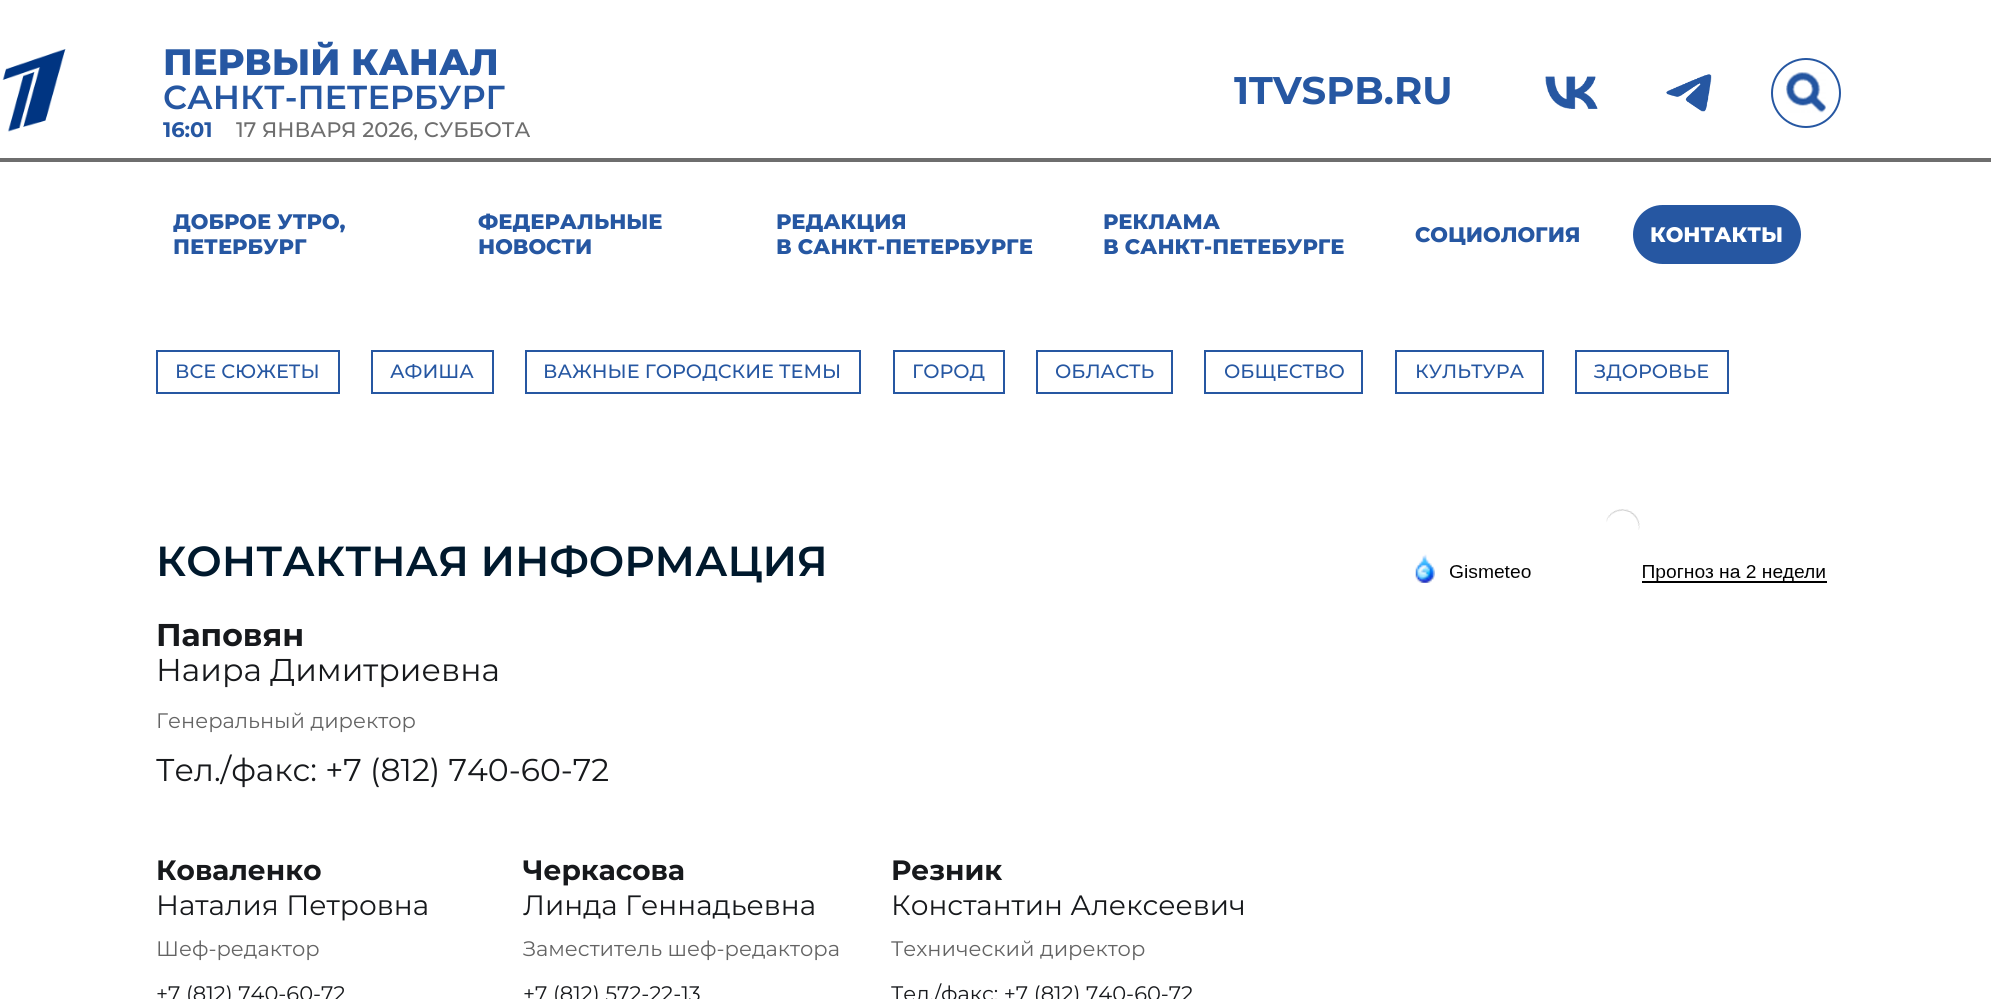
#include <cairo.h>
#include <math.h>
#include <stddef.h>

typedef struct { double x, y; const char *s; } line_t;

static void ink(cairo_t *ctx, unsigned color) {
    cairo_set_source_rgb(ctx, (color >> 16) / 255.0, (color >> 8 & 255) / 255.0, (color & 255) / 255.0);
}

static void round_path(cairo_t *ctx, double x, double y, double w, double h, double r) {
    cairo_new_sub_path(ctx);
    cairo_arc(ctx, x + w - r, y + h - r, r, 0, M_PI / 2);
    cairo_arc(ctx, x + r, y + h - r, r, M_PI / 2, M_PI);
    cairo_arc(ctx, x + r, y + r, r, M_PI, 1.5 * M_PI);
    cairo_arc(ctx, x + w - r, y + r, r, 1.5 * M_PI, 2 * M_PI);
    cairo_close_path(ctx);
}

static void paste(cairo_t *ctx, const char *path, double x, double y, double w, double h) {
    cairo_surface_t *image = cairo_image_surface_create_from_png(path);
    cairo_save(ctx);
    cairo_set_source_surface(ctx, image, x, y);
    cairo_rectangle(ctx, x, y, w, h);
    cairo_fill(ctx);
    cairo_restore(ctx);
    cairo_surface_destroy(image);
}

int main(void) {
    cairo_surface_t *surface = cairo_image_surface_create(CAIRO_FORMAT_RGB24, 1991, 999);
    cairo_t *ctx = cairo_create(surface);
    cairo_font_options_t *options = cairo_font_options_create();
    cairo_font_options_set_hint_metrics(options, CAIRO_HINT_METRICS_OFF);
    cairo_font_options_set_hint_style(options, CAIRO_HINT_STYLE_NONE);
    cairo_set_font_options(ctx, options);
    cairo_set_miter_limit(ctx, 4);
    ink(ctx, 0xFFFFFF);
    cairo_paint(ctx);
    ink(ctx, 0x6E6E6E);
    cairo_rectangle(ctx, 0, 158, 1991, 4);
    cairo_fill(ctx);
    paste(ctx, "media/1.png", 2, 49, 64, 83);
    cairo_select_font_face(ctx, "Montserrat ExtraBold", CAIRO_FONT_SLANT_NORMAL, CAIRO_FONT_WEIGHT_NORMAL);
    cairo_set_font_size(ctx, 36.75);
    ink(ctx, 0x2657A2);
    cairo_move_to(ctx, 163, 75);
    cairo_show_text(ctx, "ПЕРВЫЙ КАНАЛ");
    cairo_select_font_face(ctx, "Montserrat SemiBold", CAIRO_FONT_SLANT_NORMAL, CAIRO_FONT_WEIGHT_NORMAL);
    cairo_set_font_size(ctx, 33.25);
    cairo_move_to(ctx, 163, 109);
    cairo_show_text(ctx, "САНКТ-ПЕТЕРБУРГ");
    cairo_select_font_face(ctx, "Montserrat", CAIRO_FONT_SLANT_NORMAL, CAIRO_FONT_WEIGHT_BOLD);
    cairo_set_font_size(ctx, 21);
    cairo_move_to(ctx, 163, 137);
    cairo_show_text(ctx, "16:01");
    cairo_select_font_face(ctx, "Montserrat Medium", CAIRO_FONT_SLANT_NORMAL, CAIRO_FONT_WEIGHT_NORMAL);
    ink(ctx, 0x6E6E6E);
    cairo_move_to(ctx, 236, 137);
    cairo_show_text(ctx, "17 ЯНВАРЯ 2026, СУББОТА");
    cairo_select_font_face(ctx, "Montserrat", CAIRO_FONT_SLANT_NORMAL, CAIRO_FONT_WEIGHT_BOLD);
    cairo_set_font_size(ctx, 38.5);
    ink(ctx, 0x2657A2);
    cairo_move_to(ctx, 1234, 104);
    cairo_show_text(ctx, "1TVSPB.RU");
    paste(ctx, "media/2.png", 1545, 76, 53, 33);
    paste(ctx, "media/3.png", 1666, 74, 46, 38);
    cairo_arc(ctx, 1806, 93, 34, 0, 2 * M_PI);
    cairo_stroke(ctx);
    paste(ctx, "media/4.png", 1786, 72, 40, 41);
    cairo_select_font_face(ctx, "Montserrat ExtraBold", CAIRO_FONT_SLANT_NORMAL, CAIRO_FONT_WEIGHT_NORMAL);
    cairo_set_font_size(ctx, 21);
    {
        static const line_t items[] = {
            {173, 229, "ДОБРОЕ УТРО,"},
            {173, 254, "ПЕТЕРБУРГ"},
            {478, 229, "ФЕДЕРАЛЬНЫЕ"},
            {478, 254, "НОВОСТИ"},
            {776, 229, "РЕДАКЦИЯ"},
            {776, 254, "В САНКТ-ПЕТЕРБУРГЕ"},
            {1103, 229, "РЕКЛАМА"},
            {1103, 254, "В САНКТ-ПЕТЕБУРГЕ"},
            {1415, 242, "СОЦИОЛОГИЯ"},
        };
        for (size_t i = 0; i < sizeof items / sizeof *items; i++) {
            cairo_move_to(ctx, items[i].x, items[i].y);
            cairo_show_text(ctx, items[i].s);
        }
    }
    round_path(ctx, 1633, 205, 168, 59, 29.5);
    cairo_fill(ctx);
    ink(ctx, 0xFFFFFF);
    cairo_move_to(ctx, 1650, 242);
    cairo_show_text(ctx, "КОНТАКТЫ");
    cairo_rectangle(ctx, 157, 351, 182, 42);
    ink(ctx, 0x2657A2);
    cairo_stroke(ctx);
    cairo_select_font_face(ctx, "Montserrat Medium", CAIRO_FONT_SLANT_NORMAL, CAIRO_FONT_WEIGHT_NORMAL);
    cairo_set_font_size(ctx, 19.25);
    cairo_move_to(ctx, 175, 378);
    cairo_show_text(ctx, "ВСЕ СЮЖЕТЫ");
    cairo_rectangle(ctx, 372, 351, 121, 42);
    cairo_stroke(ctx);
    cairo_move_to(ctx, 390, 378);
    cairo_show_text(ctx, "АФИША");
    cairo_rectangle(ctx, 526, 351, 334, 42);
    cairo_stroke(ctx);
    cairo_move_to(ctx, 543, 378);
    cairo_show_text(ctx, "ВАЖНЫЕ ГОРОДСКИЕ ТЕМЫ");
    cairo_rectangle(ctx, 894, 351, 110, 42);
    cairo_stroke(ctx);
    cairo_move_to(ctx, 912, 378);
    cairo_show_text(ctx, "ГОРОД");
    cairo_rectangle(ctx, 1037, 351, 135, 42);
    cairo_stroke(ctx);
    cairo_move_to(ctx, 1055, 378);
    cairo_show_text(ctx, "ОБЛАСТЬ");
    cairo_rectangle(ctx, 1205, 351, 157, 42);
    cairo_stroke(ctx);
    cairo_move_to(ctx, 1224, 378);
    cairo_show_text(ctx, "ОБЩЕСТВО");
    cairo_rectangle(ctx, 1396, 351, 147, 42);
    cairo_stroke(ctx);
    cairo_move_to(ctx, 1415, 378);
    cairo_show_text(ctx, "КУЛЬТУРА");
    cairo_rectangle(ctx, 1576, 351, 152, 42);
    cairo_stroke(ctx);
    cairo_move_to(ctx, 1594, 378);
    cairo_show_text(ctx, "ЗДОРОВЬЕ");
    cairo_select_font_face(ctx, "Montserrat SemiBold", CAIRO_FONT_SLANT_NORMAL, CAIRO_FONT_WEIGHT_NORMAL);
    cairo_set_font_size(ctx, 42);
    ink(ctx, 0x00192D);
    cairo_move_to(ctx, 156, 576);
    cairo_show_text(ctx, "КОНТАКТНАЯ ИНФОРМАЦИЯ");
    cairo_select_font_face(ctx, "Montserrat", CAIRO_FONT_SLANT_NORMAL, CAIRO_FONT_WEIGHT_BOLD);
    cairo_set_font_size(ctx, 31.5);
    ink(ctx, 0x17191C);
    cairo_move_to(ctx, 156, 646);
    cairo_show_text(ctx, "Паповян");
    cairo_select_font_face(ctx, "Montserrat", CAIRO_FONT_SLANT_NORMAL, CAIRO_FONT_WEIGHT_NORMAL);
    cairo_move_to(ctx, 156, 681);
    cairo_show_text(ctx, "Наира Димитриевна");
    cairo_set_font_size(ctx, 21);
    ink(ctx, 0x646464);
    cairo_move_to(ctx, 156, 728);
    cairo_show_text(ctx, "Генеральный директор");
    cairo_set_font_size(ctx, 31.5);
    ink(ctx, 0x17191C);
    cairo_move_to(ctx, 156, 781);
    cairo_show_text(ctx, "Тел./факс: +7 (812) 740-60-72");
    cairo_select_font_face(ctx, "Montserrat", CAIRO_FONT_SLANT_NORMAL, CAIRO_FONT_WEIGHT_BOLD);
    cairo_set_font_size(ctx, 28);
    cairo_move_to(ctx, 156, 880);
    cairo_show_text(ctx, "Коваленко");
    cairo_select_font_face(ctx, "Montserrat", CAIRO_FONT_SLANT_NORMAL, CAIRO_FONT_WEIGHT_NORMAL);
    cairo_move_to(ctx, 156, 915);
    cairo_show_text(ctx, "Наталия Петровна");
    cairo_set_font_size(ctx, 21);
    ink(ctx, 0x646464);
    cairo_move_to(ctx, 156, 956);
    cairo_show_text(ctx, "Шеф-редактор");
    ink(ctx, 0x17191C);
    cairo_move_to(ctx, 156, 1001);
    cairo_show_text(ctx, "+7 (812) 740-60-72");
    cairo_select_font_face(ctx, "Montserrat", CAIRO_FONT_SLANT_NORMAL, CAIRO_FONT_WEIGHT_BOLD);
    cairo_set_font_size(ctx, 28);
    cairo_move_to(ctx, 523, 880);
    cairo_show_text(ctx, "Черкасова");
    cairo_select_font_face(ctx, "Montserrat", CAIRO_FONT_SLANT_NORMAL, CAIRO_FONT_WEIGHT_NORMAL);
    cairo_move_to(ctx, 523, 915);
    cairo_show_text(ctx, "Линда Геннадьевна");
    cairo_set_font_size(ctx, 21);
    ink(ctx, 0x646464);
    cairo_move_to(ctx, 523, 956);
    cairo_show_text(ctx, "Заместитель шеф-редактора");
    ink(ctx, 0x17191C);
    cairo_move_to(ctx, 523, 1001);
    cairo_show_text(ctx, "+7 (812) 572-22-13");
    cairo_select_font_face(ctx, "Montserrat", CAIRO_FONT_SLANT_NORMAL, CAIRO_FONT_WEIGHT_BOLD);
    cairo_set_font_size(ctx, 28);
    cairo_move_to(ctx, 891, 880);
    cairo_show_text(ctx, "Резник");
    cairo_select_font_face(ctx, "Montserrat", CAIRO_FONT_SLANT_NORMAL, CAIRO_FONT_WEIGHT_NORMAL);
    cairo_move_to(ctx, 891, 915);
    cairo_show_text(ctx, "Константин Алексеевич");
    cairo_set_font_size(ctx, 21);
    ink(ctx, 0x646464);
    cairo_move_to(ctx, 891, 956);
    cairo_show_text(ctx, "Технический директор");
    ink(ctx, 0x17191C);
    cairo_move_to(ctx, 891, 1001);
    cairo_show_text(ctx, "Тел./факс: +7 (812) 740-60-72");
    paste(ctx, "media/5.png", 1606, 509, 34, 21);
    paste(ctx, "media/6.png", 1415, 554, 20, 29);
    paste(ctx, "media/7.png", 1450, 565, 81, 13);
    paste(ctx, "media/8.png", 1643, 565, 182, 16);
    ink(ctx, 0x000000);
    cairo_rectangle(ctx, 1642, 581, 185, 2);
    cairo_fill(ctx);
    cairo_surface_write_to_png(surface, "image.png");
    cairo_font_options_destroy(options);
    cairo_destroy(ctx);
    cairo_surface_destroy(surface);
    return 0;
}
